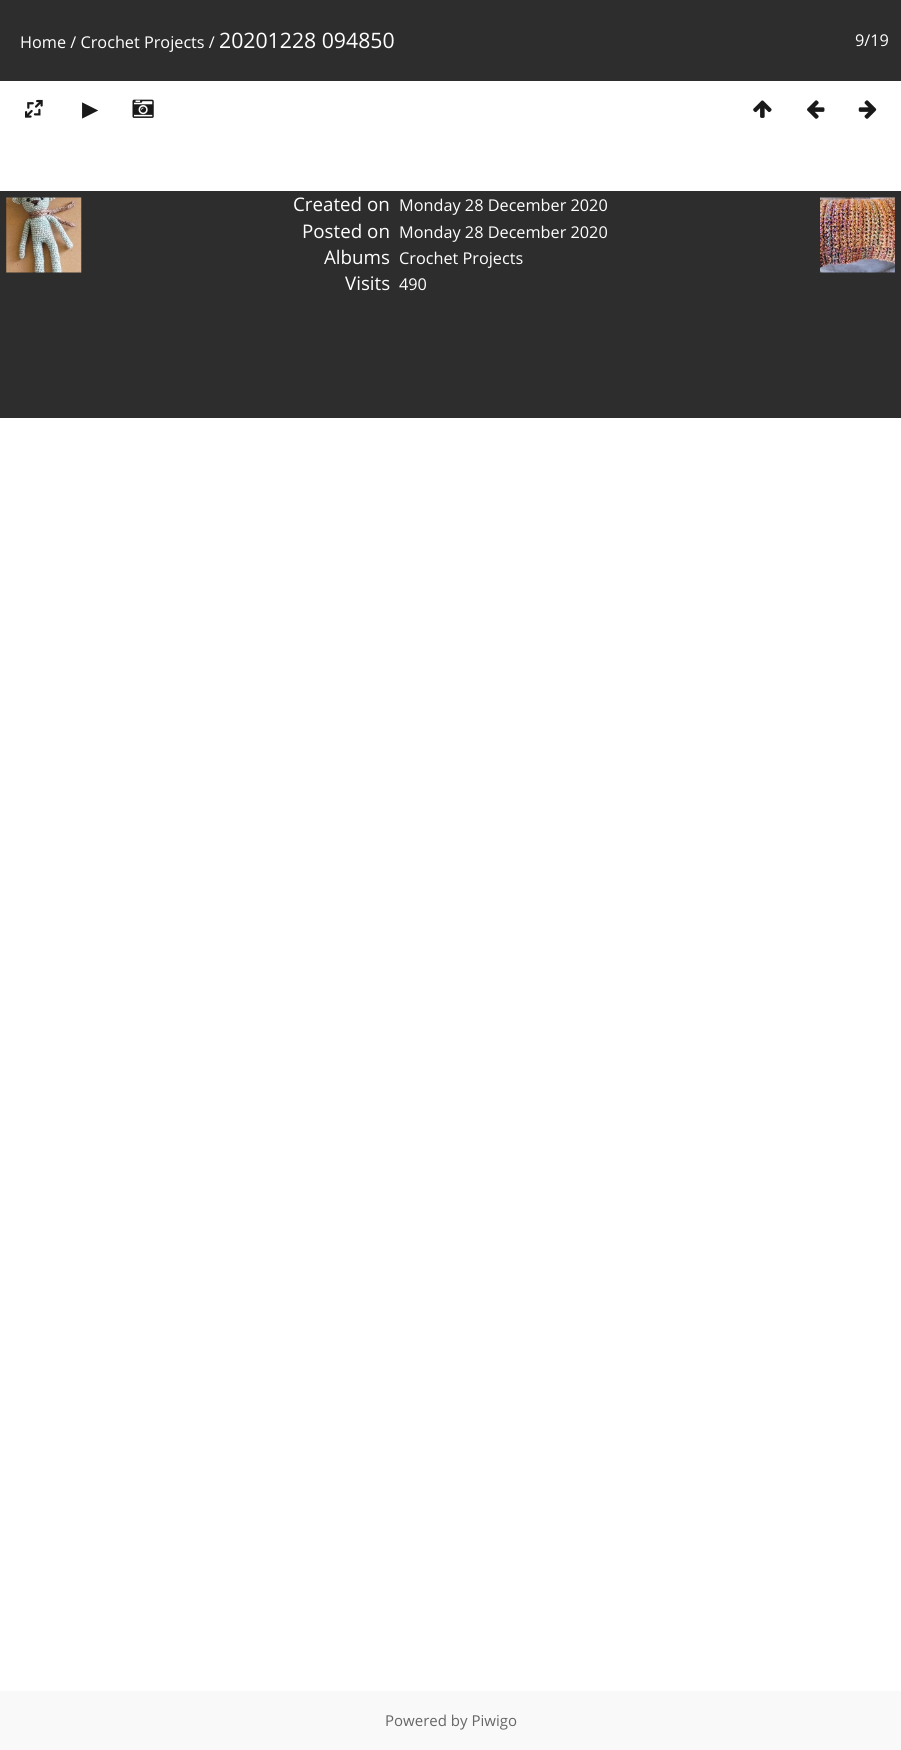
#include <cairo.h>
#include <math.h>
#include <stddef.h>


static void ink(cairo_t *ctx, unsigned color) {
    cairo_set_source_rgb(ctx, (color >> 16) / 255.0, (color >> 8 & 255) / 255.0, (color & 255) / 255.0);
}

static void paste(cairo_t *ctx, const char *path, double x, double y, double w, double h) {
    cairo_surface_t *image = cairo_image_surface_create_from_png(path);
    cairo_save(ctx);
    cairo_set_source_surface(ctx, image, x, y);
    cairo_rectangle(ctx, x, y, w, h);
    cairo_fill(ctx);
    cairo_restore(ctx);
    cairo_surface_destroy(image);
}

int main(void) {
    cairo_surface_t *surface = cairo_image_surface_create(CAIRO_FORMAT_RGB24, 901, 1750);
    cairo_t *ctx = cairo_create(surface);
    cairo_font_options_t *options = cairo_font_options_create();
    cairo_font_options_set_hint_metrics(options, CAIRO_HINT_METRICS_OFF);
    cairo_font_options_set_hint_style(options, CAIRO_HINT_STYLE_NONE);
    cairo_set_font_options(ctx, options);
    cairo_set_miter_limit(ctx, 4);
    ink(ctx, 0xFFFFFF);
    cairo_paint(ctx);
    ink(ctx, 0x2D2D2D);
    cairo_rectangle(ctx, 0, 0, 901, 81);
    cairo_fill(ctx);
    cairo_select_font_face(ctx, "Open Sans", CAIRO_FONT_SLANT_NORMAL, CAIRO_FONT_WEIGHT_NORMAL);
    cairo_set_font_size(ctx, 16.25);
    ink(ctx, 0xFFFFFF);
    cairo_move_to(ctx, 20, 48);
    cairo_show_text(ctx, "Home / Crochet Projects /");
    cairo_set_font_size(ctx, 21.25);
    cairo_move_to(ctx, 219, 48);
    cairo_show_text(ctx, "20201228 094850");
    cairo_set_font_size(ctx, 16.25);
    cairo_move_to(ctx, 855, 46);
    cairo_show_text(ctx, "9/19");
    paste(ctx, "media/1.png", 25, 99, 18, 19);
    cairo_select_font_face(ctx, "DejaVu Sans", CAIRO_FONT_SLANT_NORMAL, CAIRO_FONT_WEIGHT_NORMAL);
    cairo_set_font_size(ctx, 21.25);
    ink(ctx, 0x1A1A1A);
    cairo_move_to(ctx, 82, 116);
    cairo_show_text(ctx, "▶");
    paste(ctx, "media/2.png", 132, 99, 22, 19);
    paste(ctx, "media/3.png", 753, 100, 19, 18);
    paste(ctx, "media/4.png", 807, 100, 18, 19);
    paste(ctx, "media/5.png", 858, 100, 19, 19);
    ink(ctx, 0x2D2D2D);
    cairo_rectangle(ctx, 0, 191, 901, 227);
    cairo_fill(ctx);
    cairo_select_font_face(ctx, "Open Sans", CAIRO_FONT_SLANT_NORMAL, CAIRO_FONT_WEIGHT_NORMAL);
    cairo_set_font_size(ctx, 18.75);
    ink(ctx, 0xFFFFFF);
    cairo_move_to(ctx, 293, 211);
    cairo_show_text(ctx, "Created on");
    cairo_set_font_size(ctx, 16.25);
    cairo_move_to(ctx, 399, 211);
    cairo_show_text(ctx, "Monday 28 December 2020");
    cairo_set_font_size(ctx, 18.75);
    cairo_move_to(ctx, 302, 238);
    cairo_show_text(ctx, "Posted on");
    cairo_set_font_size(ctx, 16.25);
    cairo_move_to(ctx, 399, 238);
    cairo_show_text(ctx, "Monday 28 December 2020");
    cairo_set_font_size(ctx, 18.75);
    cairo_move_to(ctx, 324, 264);
    cairo_show_text(ctx, "Albums");
    cairo_set_font_size(ctx, 16.25);
    cairo_move_to(ctx, 399, 264);
    cairo_show_text(ctx, "Crochet Projects");
    cairo_set_font_size(ctx, 18.75);
    cairo_move_to(ctx, 345, 290);
    cairo_show_text(ctx, "Visits");
    cairo_set_font_size(ctx, 16.25);
    cairo_move_to(ctx, 399, 290);
    cairo_show_text(ctx, "490");
    paste(ctx, "media/6.png", 6, 197, 76, 76);
    paste(ctx, "media/7.png", 820, 197, 75, 76);
    ink(ctx, 0xF9F9F9);
    cairo_rectangle(ctx, 0, 1691, 901, 59);
    cairo_fill(ctx);
    cairo_set_font_size(ctx, 15);
    ink(ctx, 0x666666);
    cairo_move_to(ctx, 385, 1726);
    cairo_show_text(ctx, "Powered by Piwigo");
    cairo_surface_write_to_png(surface, "image.png");
    cairo_font_options_destroy(options);
    cairo_destroy(ctx);
    cairo_surface_destroy(surface);
    return 0;
}
